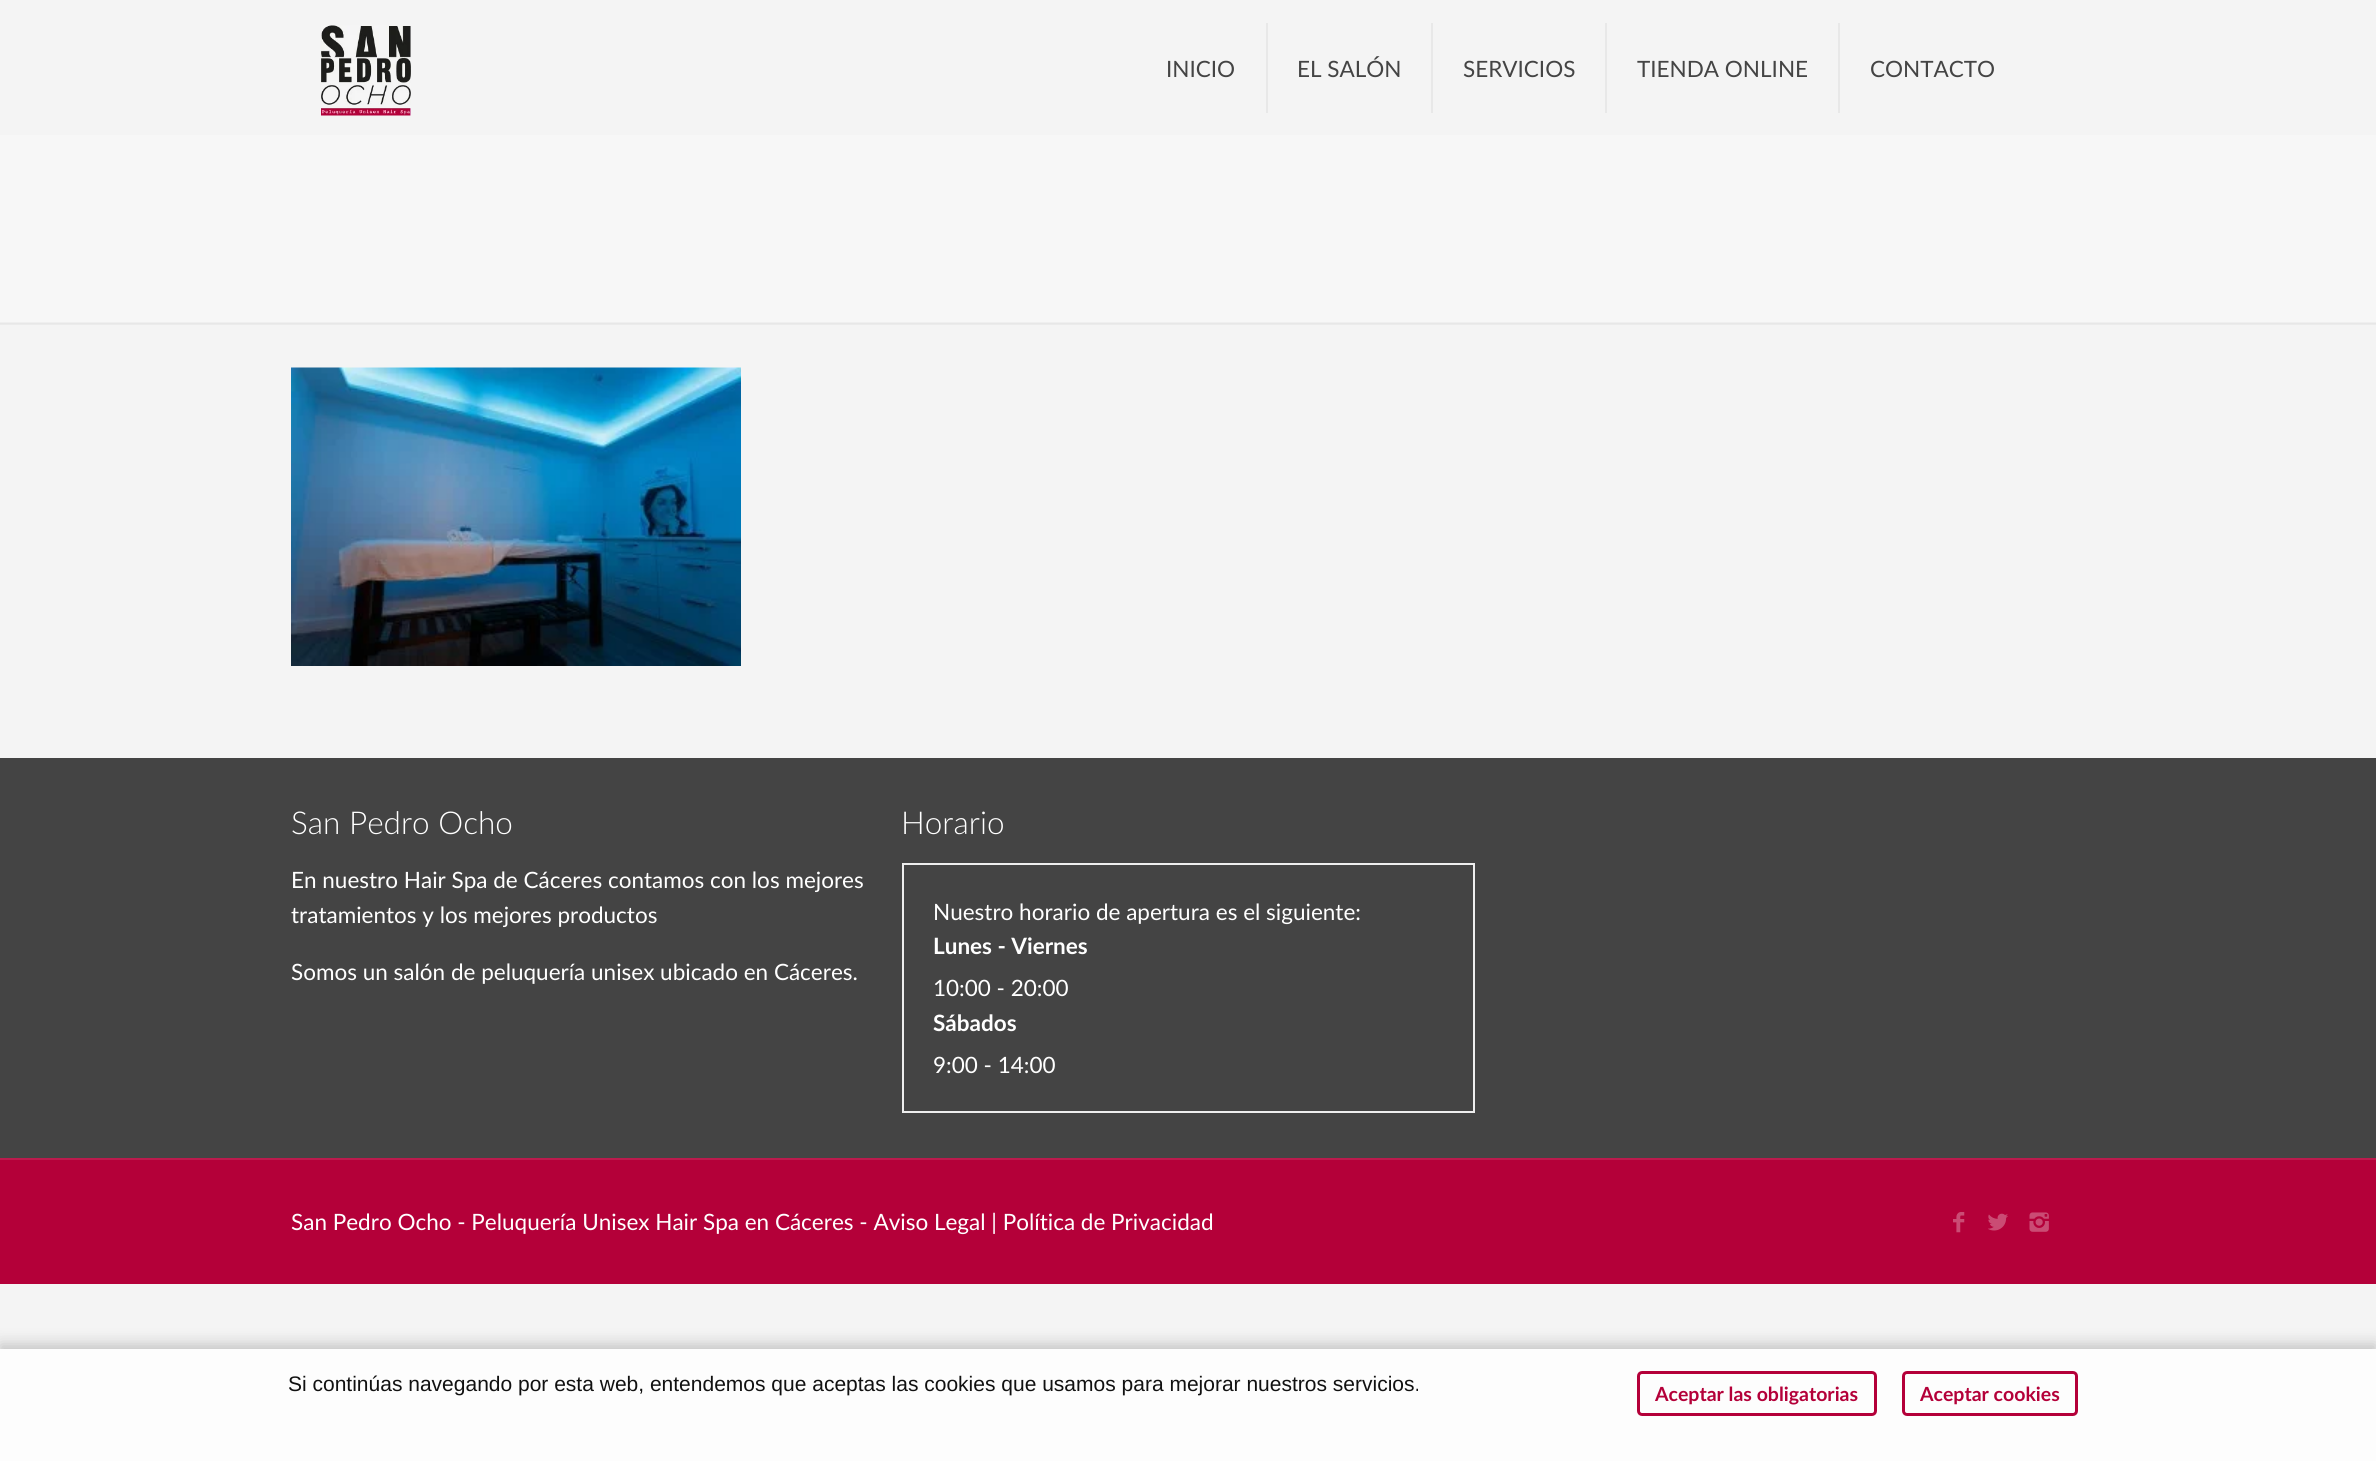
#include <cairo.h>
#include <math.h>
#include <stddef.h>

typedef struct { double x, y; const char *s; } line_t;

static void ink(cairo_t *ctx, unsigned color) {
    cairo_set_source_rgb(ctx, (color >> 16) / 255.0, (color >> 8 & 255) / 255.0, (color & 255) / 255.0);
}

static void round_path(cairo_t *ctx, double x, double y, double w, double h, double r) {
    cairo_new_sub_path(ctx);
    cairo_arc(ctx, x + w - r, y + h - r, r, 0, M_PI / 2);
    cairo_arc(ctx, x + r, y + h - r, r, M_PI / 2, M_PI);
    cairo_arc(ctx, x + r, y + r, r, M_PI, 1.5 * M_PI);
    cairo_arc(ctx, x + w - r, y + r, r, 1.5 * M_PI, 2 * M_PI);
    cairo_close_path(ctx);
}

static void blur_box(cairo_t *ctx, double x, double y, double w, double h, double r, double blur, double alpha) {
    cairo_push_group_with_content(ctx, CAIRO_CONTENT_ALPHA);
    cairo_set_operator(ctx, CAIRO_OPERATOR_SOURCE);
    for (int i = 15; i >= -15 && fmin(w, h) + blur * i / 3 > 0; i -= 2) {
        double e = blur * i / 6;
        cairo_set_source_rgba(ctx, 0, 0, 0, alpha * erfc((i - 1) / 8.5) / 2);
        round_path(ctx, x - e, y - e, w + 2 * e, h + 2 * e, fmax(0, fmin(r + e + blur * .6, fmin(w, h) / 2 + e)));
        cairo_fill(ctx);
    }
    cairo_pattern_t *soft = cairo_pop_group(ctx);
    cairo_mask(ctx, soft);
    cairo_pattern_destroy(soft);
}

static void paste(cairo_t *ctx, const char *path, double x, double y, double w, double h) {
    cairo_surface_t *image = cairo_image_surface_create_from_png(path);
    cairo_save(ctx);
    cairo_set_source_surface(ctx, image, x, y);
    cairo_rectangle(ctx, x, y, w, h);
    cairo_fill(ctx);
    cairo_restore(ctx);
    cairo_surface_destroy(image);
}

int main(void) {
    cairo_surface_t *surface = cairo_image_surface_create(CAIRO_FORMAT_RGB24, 2376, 1461);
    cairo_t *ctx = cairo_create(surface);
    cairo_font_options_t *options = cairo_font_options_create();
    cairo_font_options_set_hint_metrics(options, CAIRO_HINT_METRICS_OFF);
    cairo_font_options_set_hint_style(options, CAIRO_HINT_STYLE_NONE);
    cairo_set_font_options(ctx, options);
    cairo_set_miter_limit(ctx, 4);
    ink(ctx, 0xF4F4F4);
    cairo_paint(ctx);
    paste(ctx, "media/1.png", 321, 25, 90, 91);
    ink(ctx, 0xE8E8E8);
    cairo_rectangle(ctx, 1266, 23, 2, 90);
    cairo_fill(ctx);
    cairo_select_font_face(ctx, "Lato", CAIRO_FONT_SLANT_NORMAL, CAIRO_FONT_WEIGHT_NORMAL);
    cairo_set_font_size(ctx, 22.5);
    ink(ctx, 0x444444);
    cairo_move_to(ctx, 1166, 77);
    cairo_show_text(ctx, "INICIO");
    ink(ctx, 0xE8E8E8);
    cairo_rectangle(ctx, 1431, 23, 2, 90);
    cairo_fill(ctx);
    ink(ctx, 0x444444);
    cairo_move_to(ctx, 1297, 77);
    cairo_show_text(ctx, "EL SALÓN");
    ink(ctx, 0xE8E8E8);
    cairo_rectangle(ctx, 1605, 23, 2, 90);
    cairo_fill(ctx);
    ink(ctx, 0x444444);
    cairo_move_to(ctx, 1463, 77);
    cairo_show_text(ctx, "SERVICIOS");
    ink(ctx, 0xE8E8E8);
    cairo_rectangle(ctx, 1838, 23, 2, 90);
    cairo_fill(ctx);
    ink(ctx, 0x444444);
    cairo_move_to(ctx, 1637, 77);
    cairo_show_text(ctx, "TIENDA ONLINE");
    cairo_move_to(ctx, 1870, 77);
    cairo_show_text(ctx, "CONTACTO");
    ink(ctx, 0xF7F7F7);
    cairo_rectangle(ctx, 0, 135, 2376, 188);
    cairo_fill(ctx);
    paste(ctx, "media/2.png", 0, 322, 2376, 3);
    paste(ctx, "media/3.png", 291, 367, 450, 299);
    ink(ctx, 0x444444);
    cairo_rectangle(ctx, 0, 758, 2376, 400);
    cairo_fill(ctx);
    cairo_select_font_face(ctx, "Lato Light", CAIRO_FONT_SLANT_NORMAL, CAIRO_FONT_WEIGHT_NORMAL);
    cairo_set_font_size(ctx, 31.5);
    ink(ctx, 0xFFFFFF);
    cairo_move_to(ctx, 291, 834);
    cairo_show_text(ctx, "San Pedro Ocho");
    cairo_select_font_face(ctx, "Lato", CAIRO_FONT_SLANT_NORMAL, CAIRO_FONT_WEIGHT_NORMAL);
    cairo_set_font_size(ctx, 22.5);
    {
        static const line_t items[] = {
            {291, 888, "En nuestro Hair Spa de Cáceres contamos con los mejores"},
            {291, 923, "tratamientos y los mejores productos"},
            {291, 980, "Somos un salón de peluquería unisex ubicado en Cáceres."},
        };
        for (size_t i = 0; i < sizeof items / sizeof *items; i++) {
            cairo_move_to(ctx, items[i].x, items[i].y);
            cairo_show_text(ctx, items[i].s);
        }
    }
    cairo_select_font_face(ctx, "Lato Light", CAIRO_FONT_SLANT_NORMAL, CAIRO_FONT_WEIGHT_NORMAL);
    cairo_set_font_size(ctx, 31.5);
    cairo_move_to(ctx, 901, 834);
    cairo_show_text(ctx, "Horario");
    cairo_rectangle(ctx, 903, 864, 571, 248);
    ink(ctx, 0xEEEEEE);
    cairo_stroke(ctx);
    cairo_select_font_face(ctx, "Lato", CAIRO_FONT_SLANT_NORMAL, CAIRO_FONT_WEIGHT_NORMAL);
    cairo_set_font_size(ctx, 22.5);
    ink(ctx, 0xFFFFFF);
    cairo_move_to(ctx, 933, 920);
    cairo_show_text(ctx, "Nuestro horario de apertura es el siguiente:");
    cairo_select_font_face(ctx, "Lato", CAIRO_FONT_SLANT_NORMAL, CAIRO_FONT_WEIGHT_BOLD);
    cairo_move_to(ctx, 933, 954);
    cairo_show_text(ctx, "Lunes - Viernes");
    cairo_select_font_face(ctx, "Lato", CAIRO_FONT_SLANT_NORMAL, CAIRO_FONT_WEIGHT_NORMAL);
    cairo_move_to(ctx, 933, 996);
    cairo_show_text(ctx, "10:00 - 20:00");
    cairo_select_font_face(ctx, "Lato", CAIRO_FONT_SLANT_NORMAL, CAIRO_FONT_WEIGHT_BOLD);
    cairo_move_to(ctx, 933, 1031);
    cairo_show_text(ctx, "Sábados");
    cairo_select_font_face(ctx, "Lato", CAIRO_FONT_SLANT_NORMAL, CAIRO_FONT_WEIGHT_NORMAL);
    cairo_move_to(ctx, 933, 1073);
    cairo_show_text(ctx, "9:00 - 14:00");
    ink(ctx, 0xB40039);
    cairo_rectangle(ctx, 0, 1160, 2376, 124);
    cairo_fill(ctx);
    ink(ctx, 0xBC1A4D);
    cairo_rectangle(ctx, 0, 1158, 2376, 2);
    cairo_fill(ctx);
    ink(ctx, 0xFFFFFF);
    cairo_move_to(ctx, 291, 1230);
    cairo_show_text(ctx, "San Pedro Ocho - Peluquería Unisex Hair Spa en Cáceres - Aviso Legal | Política de Privacidad");
    paste(ctx, "media/4.png", 1953, 1212, 12, 21);
    paste(ctx, "media/5.png", 1988, 1213, 20, 18);
    paste(ctx, "media/6.png", 2029, 1212, 20, 20);
    ink(ctx, 0x000000);
    blur_box(ctx, 0, 1344, 2376, 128, 0, 7.5, 0.2);
    ink(ctx, 0xFDFDFD);
    cairo_rectangle(ctx, 0, 1349, 2376, 112);
    cairo_fill(ctx);
    cairo_select_font_face(ctx, "Liberation Sans", CAIRO_FONT_SLANT_NORMAL, CAIRO_FONT_WEIGHT_NORMAL);
    cairo_set_font_size(ctx, 21);
    ink(ctx, 0x111111);
    cairo_move_to(ctx, 288, 1391);
    cairo_show_text(ctx, "Si continúas navegando por esta web, entendemos que aceptas las cookies que usamos para mejorar nuestros servicios.");
    round_path(ctx, 1638.5, 1372.5, 237, 42, 3.5);
    ink(ctx, 0xB40039);
    cairo_set_line_width(ctx, 3);
    cairo_stroke(ctx);
    cairo_select_font_face(ctx, "Lato", CAIRO_FONT_SLANT_NORMAL, CAIRO_FONT_WEIGHT_BOLD);
    cairo_set_font_size(ctx, 19.5);
    cairo_move_to(ctx, 1655, 1401);
    cairo_show_text(ctx, "Aceptar las obligatorias");
    round_path(ctx, 1903.5, 1372.5, 173, 42, 3.5);
    cairo_stroke(ctx);
    cairo_move_to(ctx, 1920, 1401);
    cairo_show_text(ctx, "Aceptar cookies");
    cairo_surface_write_to_png(surface, "image.png");
    cairo_font_options_destroy(options);
    cairo_destroy(ctx);
    cairo_surface_destroy(surface);
    return 0;
}
